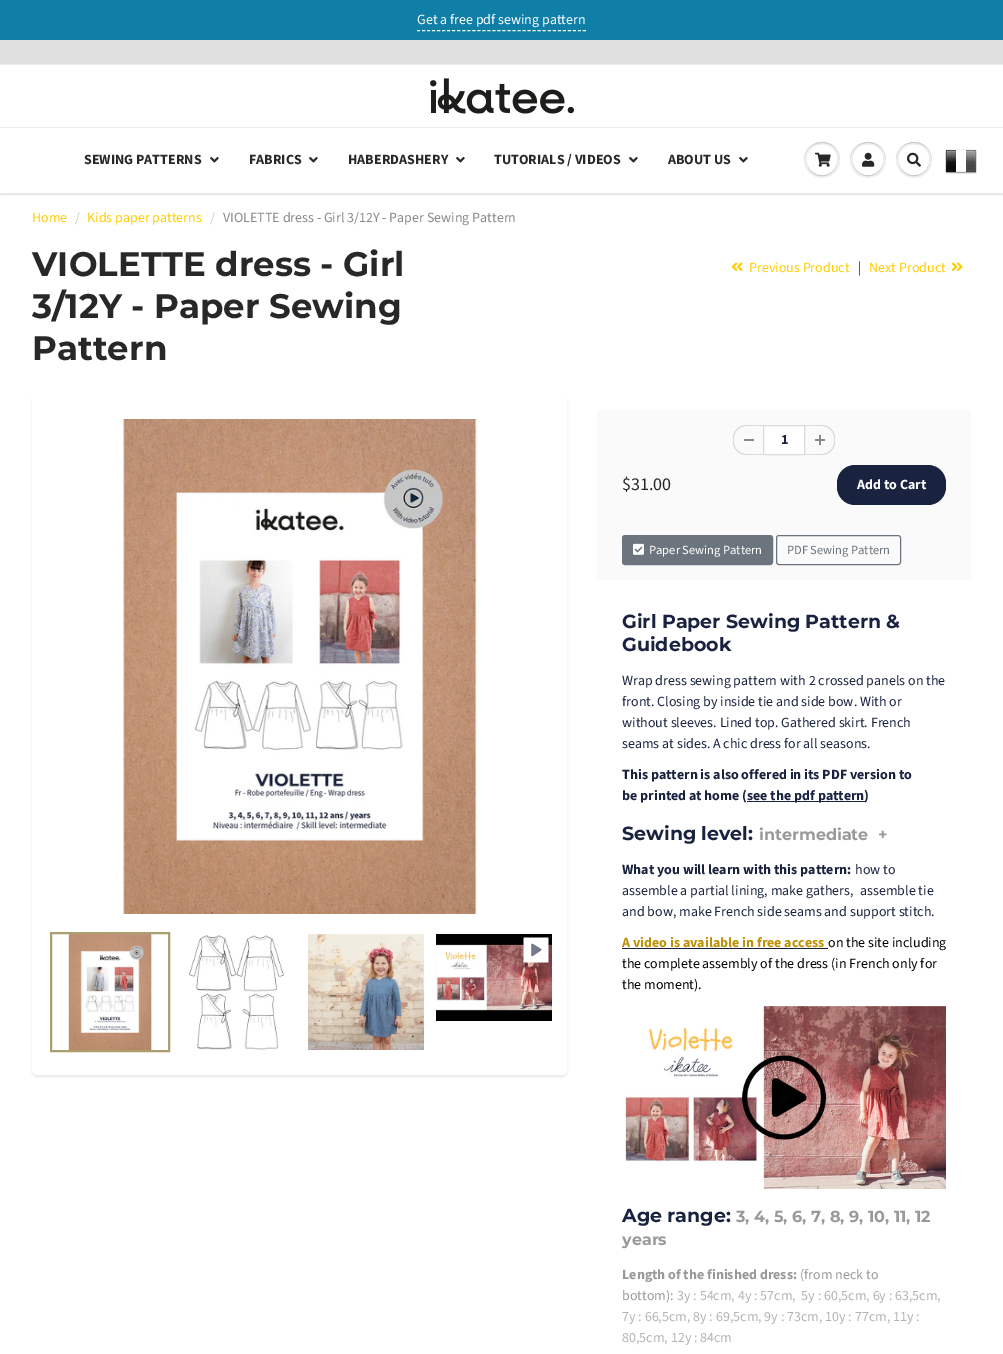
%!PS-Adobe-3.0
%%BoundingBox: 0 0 1003 1354
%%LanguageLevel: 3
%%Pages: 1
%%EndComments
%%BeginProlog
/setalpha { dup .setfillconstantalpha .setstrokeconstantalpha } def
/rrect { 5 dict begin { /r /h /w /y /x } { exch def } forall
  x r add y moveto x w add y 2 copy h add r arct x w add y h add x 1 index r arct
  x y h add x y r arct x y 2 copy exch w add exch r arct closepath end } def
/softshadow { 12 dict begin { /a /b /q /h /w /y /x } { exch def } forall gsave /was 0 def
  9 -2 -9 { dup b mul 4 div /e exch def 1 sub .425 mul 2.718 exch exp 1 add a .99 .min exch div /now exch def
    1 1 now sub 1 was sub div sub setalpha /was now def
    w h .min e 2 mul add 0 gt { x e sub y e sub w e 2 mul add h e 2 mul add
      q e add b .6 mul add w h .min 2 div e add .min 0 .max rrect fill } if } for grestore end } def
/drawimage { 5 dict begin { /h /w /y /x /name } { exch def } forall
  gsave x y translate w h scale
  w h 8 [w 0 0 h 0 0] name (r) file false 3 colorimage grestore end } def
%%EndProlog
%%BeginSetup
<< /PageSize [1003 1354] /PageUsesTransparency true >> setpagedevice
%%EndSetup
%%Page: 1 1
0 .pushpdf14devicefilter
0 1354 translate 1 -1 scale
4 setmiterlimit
1 setgray
0 0 1003 1354 rectfill
0.063 0.498 0.659 setrgbcolor
0 0 1003 40 rectfill
1 setgray
[3 2.03] 0 setdash
newpath 417 30.5 moveto 586 30.5 lineto stroke
0.878 setgray
0 40 1003 24 rectfill
0.925 0.937 0.937 setrgbcolor
0 64 1003 1 rectfill
(images/1.raw) 430 78 144 36 drawimage
gsave
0 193 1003 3 rectclip
0.043 0.098 0.11 setrgbcolor
0 129 1003 66 0 1 0.12 softshadow
grestore
0 127 1003 1 rectfill
(images/2.raw) 210 157 9 6 drawimage
(images/2.raw) 309 157 9 6 drawimage
(images/2.raw) 456 157 9 6 drawimage
(images/2.raw) 629 157 9 6 drawimage
(images/2.raw) 739 157 9 6 drawimage
0.929 0.937 0.937 setrgbcolor
newpath 822 160 18 0 360 arc closepath fill
0.788 0.796 0.796 setrgbcolor
newpath 822 143 moveto 834 143 840 151.5 840 160.5 curveto 840 157 839 153 837 150 curveto 827 135 803.5 142.5 804 160.5 curveto 804 151.5 810 143 822 143 curveto closepath fill
newpath 837 160.5 moveto 836.5 179.5 807.5 179.5 807 160.5 curveto 807 163.5 808 167 809.5 169.5 curveto 818 182 837.5 175.5 837 160.5 curveto closepath fill
1 setgray
newpath 822 160 15 0 360 arc closepath fill
newpath 822 146 moveto 832 146 837 153 837 160.5 curveto 837 157.5 836 154 834.5 151.5 curveto 826 139 806.5 145.5 807 160.5 curveto 807 153 812 146 822 146 curveto closepath fill
(images/3.raw) 815 152 16 15 drawimage
0.929 0.937 0.937 setrgbcolor
newpath 868 160 18 0 360 arc closepath fill
0.788 0.796 0.796 setrgbcolor
newpath 868 143 moveto 880 143 886 151.5 886 160.5 curveto 886 157 885 153 883 150 curveto 873 135 849.5 142.5 850 160.5 curveto 850 151.5 856 143 868 143 curveto closepath fill
newpath 883 160.5 moveto 882.5 179.5 853.5 179.5 853 160.5 curveto 852.5 175.5 872 182 880.5 169.5 curveto 882 167 883 163.5 883 160.5 curveto closepath fill
1 setgray
newpath 868 160 15 0 360 arc closepath fill
newpath 868 146 moveto 878 146 883 153 883 160.5 curveto 883 157.5 882 154 880.5 151.5 curveto 872 139 852.5 145.5 853 160.5 curveto 853 153 858 146 868 146 curveto closepath fill
(images/4.raw) 862 152 13 15 drawimage
0.929 0.937 0.937 setrgbcolor
newpath 914 160 18 0 360 arc closepath fill
0.788 0.796 0.796 setrgbcolor
newpath 914 143 moveto 926 143 932 151.5 932 160.5 curveto 932 157 931 153 929 150 curveto 919 135 895.5 142.5 896 160.5 curveto 896 151.5 902 143 914 143 curveto closepath fill
newpath 929 160.5 moveto 928.5 179.5 899.5 179.5 899 160.5 curveto 899 163.5 900 167 901.5 169.5 curveto 910 182 929.5 175.5 929 160.5 curveto closepath fill
1 setgray
newpath 914 160 15 0 360 arc closepath fill
newpath 914 146 moveto 924 146 929 153 929 160.5 curveto 929 157.5 928 154 926.5 151.5 curveto 918 139 898.5 145.5 899 160.5 curveto 899 153 904 146 914 146 curveto closepath fill
(images/5.raw) 907 152 14 15 drawimage
(images/6.raw) 945 149 32 25 drawimage
(images/7.raw) 731 262 12 10 drawimage
(images/8.raw) 951 262 12 10 drawimage
0.043 0.098 0.11 setrgbcolor
32 396 535 681 5 1 0.1 softshadow
1 setgray
32 394 535 681 5 rrect fill
(images/9.raw) 122 419 356 495 drawimage
0.671 0.624 0.431 setrgbcolor
2 setlinewidth
[] 0 setdash
51 933 118 118 rectstroke
(images/10.raw) 68 934 84 116 drawimage
(images/11.raw) 189 935 95 115 drawimage
(images/12.raw) 308 934 116 116 drawimage
(images/13.raw) 436 934 116 87 drawimage
(images/14.raw) 523 937 26 26 drawimage
0.98 setgray
597 410 374 170 rectfill
0.537 setgray
744 439 10 2 rectfill
0.843 0.859 0.859 setrgbcolor
newpath 746 425 moveto 763 425 lineto 763 455 lineto 746 455 lineto 739 455 733 449 733 442 curveto 733 438 lineto 733 431 739 425 746 425 curveto closepath 746 426 moveto 763 426 lineto 763 454 lineto 746 454 lineto 739.5 454 734 448.5 734 442 curveto 734 438 lineto 734 431.5 739.5 426 746 426 curveto closepath eofill
1 setgray
newpath 763.5 425.5 moveto 804.5 425.5 lineto 804.5 454.5 lineto 763.5 454.5 lineto closepath gsave fill grestore
0.843 0.859 0.859 setrgbcolor
1 setlinewidth
stroke
(images/15.raw) 815 435 10 10 drawimage
newpath 805 425 moveto 822 425 lineto 829 425 835 431 835 438 curveto 835 442 lineto 835 449 829 455 822 455 curveto 805 455 lineto closepath 805 426 moveto 822 426 lineto 828.5 426 834 431.5 834 438 curveto 834 442 lineto 834 448.5 828.5 454 822 454 curveto 805 454 lineto closepath eofill
0.098 0.137 0.247 setrgbcolor
837 465 109 40 18 rrect fill
0.424 0.459 0.49 setrgbcolor
622.5 535.5 150 29 2.5 rrect gsave fill grestore
stroke
(images/16.raw) 633 543 11 12 drawimage
776.5 535.5 124 29 2.5 rrect stroke
0.098 0.137 0.247 setrgbcolor
747 801 118 1 rectfill
622 948 206 1 rectfill
(images/17.raw) 624 1006 322 183 drawimage
/SourceSansPro-Regular [14 0 0 -14 0 0] selectfont
1 setgray
417 24 moveto (Get a free pdf sewing pattern) show
/SourceSansPro-Bold [14 0 0 -14 0 0] selectfont
0.157 0.157 0.153 setrgbcolor
84 164 moveto (SEWING PATTERNS) show
249 164 moveto (FABRICS) show
348 164 moveto (HABERDASHERY) show
494 164 moveto (TUTORIALS / VIDEOS) show
668 164 moveto (ABOUT US) show
/SourceSansPro-Regular [14 0 0 -14 0 0] selectfont
1 0.8 0 setrgbcolor
32 222 moveto (Home) show
0.8 setgray
75 222 moveto (/) show
1 0.8 0 setrgbcolor
87 222 moveto (Kids paper patterns) show
0.8 setgray
210 222 moveto (/) show
0.537 setgray
223 222 moveto (VIOLETTE dress - Girl 3/12Y - Paper Sewing Pattern) show
/Montserrat-Bold [34 0 0 -34 0 0] selectfont
0.157 0.157 0.153 setrgbcolor
32 276 moveto (VIOLETTE dress - Girl) show
32 318 moveto (3/12Y - Paper Sewing) show
32 360 moveto (Pattern) show
/SourceSansPro-Regular [14 0 0 -14 0 0] selectfont
1 0.8 0 setrgbcolor
749 272 moveto (Previous Product) show
0.098 0.137 0.247 setrgbcolor
858 272 moveto (|) show
1 0.8 0 setrgbcolor
869 272 moveto (Next Product) show
/SourceSansPro-Bold [14 0 0 -14 0 0] selectfont
0.098 0.137 0.247 setrgbcolor
781 444 moveto (1) show
/SourceSansPro-Regular [18 0 0 -18 0 0] selectfont
0.157 0.157 0.153 setrgbcolor
622 490 moveto ($31.00) show
/SourceSansPro-Bold [14 0 0 -14 0 0] selectfont
1 setgray
857 489 moveto (Add to Cart) show
/SourceSansPro-Regular [12.5 0 0 -12.5 0 0] selectfont
649 554 moveto (Paper Sewing Pattern) show
0.424 0.459 0.49 setrgbcolor
787 554 moveto (PDF Sewing Pattern) show
/Montserrat-Bold [19 0 0 -19 0 0] selectfont
0.098 0.137 0.247 setrgbcolor
622 628 moveto (Girl Paper Sewing Pattern &) show
622 651 moveto (Guidebook) show
/SourceSansPro-Regular [14 0 0 -14 0 0] selectfont
622 685 moveto (Wrap dress sewing pattern with 2 crossed panels on the) show
622 706 moveto (front. Closing by inside tie and side bow. With or) show
622 727 moveto (without sleeves. Lined top. Gathered skirt. French) show
622 748 moveto (seams at sides. A chic dress for all seasons.) show
/SourceSansPro-Bold [14 0 0 -14 0 0] selectfont
622 779 moveto (This pattern is also offered in its PDF version to) show
622 800 moveto (be printed at home \() show
747 800 moveto (see the pdf pattern\)) show
/Montserrat-Bold [19 0 0 -19 0 0] selectfont
622 840 moveto (Sewing level:) show
/Montserrat-Bold [16 0 0 -16 0 0] selectfont
0.6 setgray
759 840 moveto (intermediate  +) show
/SourceSansPro-Bold [14 0 0 -14 0 0] selectfont
0.098 0.137 0.247 setrgbcolor
622 874 moveto (What you will learn with this pattern:) show
/SourceSansPro-Regular [14 0 0 -14 0 0] selectfont
855 874 moveto (how to) show
622 895 moveto (assemble a partial lining, make gathers,) show
860 895 moveto (assemble tie) show
622 916 moveto (and bow, make French side seams and support stitch.) show
/SourceSansPro-Bold [14 0 0 -14 0 0] selectfont
0.749 0.565 0 setrgbcolor
622 947 moveto (A video is available in free access) show
/SourceSansPro-Regular [14 0 0 -14 0 0] selectfont
0 setgray
828 947 moveto (on the site including) show
622 968 moveto (the complete assembly of the dress \(in French only for) show
622 989 moveto (the moment\).) show
/Montserrat-Bold [19 0 0 -19 0 0] selectfont
0.098 0.137 0.247 setrgbcolor
622 1222 moveto (Age range:) show
/Montserrat-Bold [16 0 0 -16 0 0] selectfont
0.6 setgray
736 1222 moveto (3, 4, 5, 6, 7, 8, 9, 10, 11, 12) show
622 1245 moveto (years) show
/SourceSansPro-Bold [14 0 0 -14 0 0] selectfont
622 1279 moveto (Length of the finished dress:) show
/SourceSansPro-Regular [14 0 0 -14 0 0] selectfont
800 1279 moveto (\(from neck to) show
622 1300 moveto (bottom\):) show
0.702 setgray
677 1300 moveto (3y : 54cm, 4y : 57cm,  5y : 60,5cm, 6y : 63,5cm,) show
622 1321 moveto (7y : 66,5cm, 8y : 69,5cm, 9y : 73cm, 10y : 77cm, 11y :) show
622 1342 moveto (80,5cm, 12y : 84cm) show
.poppdf14devicefilter showpage
%%EOF
